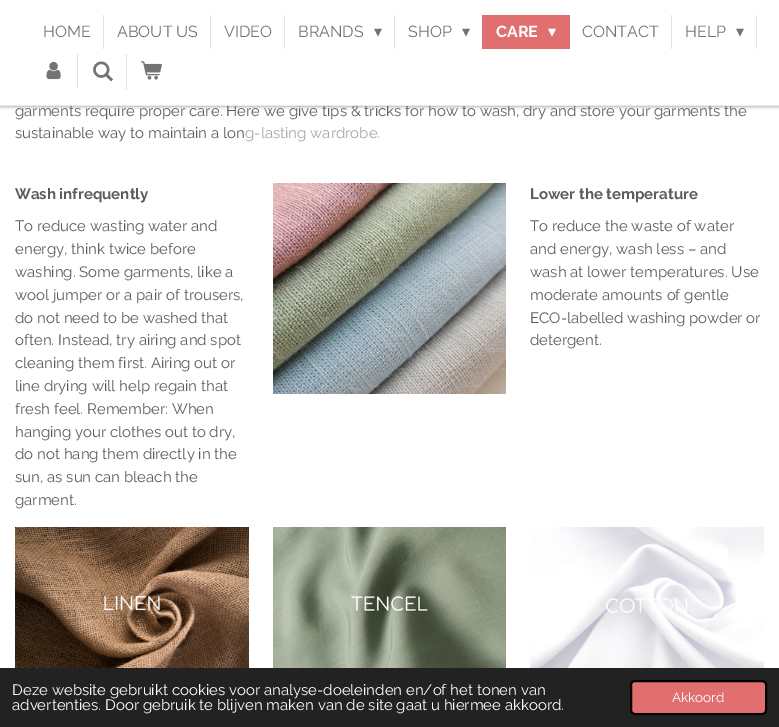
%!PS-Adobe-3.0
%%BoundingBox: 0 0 779 727
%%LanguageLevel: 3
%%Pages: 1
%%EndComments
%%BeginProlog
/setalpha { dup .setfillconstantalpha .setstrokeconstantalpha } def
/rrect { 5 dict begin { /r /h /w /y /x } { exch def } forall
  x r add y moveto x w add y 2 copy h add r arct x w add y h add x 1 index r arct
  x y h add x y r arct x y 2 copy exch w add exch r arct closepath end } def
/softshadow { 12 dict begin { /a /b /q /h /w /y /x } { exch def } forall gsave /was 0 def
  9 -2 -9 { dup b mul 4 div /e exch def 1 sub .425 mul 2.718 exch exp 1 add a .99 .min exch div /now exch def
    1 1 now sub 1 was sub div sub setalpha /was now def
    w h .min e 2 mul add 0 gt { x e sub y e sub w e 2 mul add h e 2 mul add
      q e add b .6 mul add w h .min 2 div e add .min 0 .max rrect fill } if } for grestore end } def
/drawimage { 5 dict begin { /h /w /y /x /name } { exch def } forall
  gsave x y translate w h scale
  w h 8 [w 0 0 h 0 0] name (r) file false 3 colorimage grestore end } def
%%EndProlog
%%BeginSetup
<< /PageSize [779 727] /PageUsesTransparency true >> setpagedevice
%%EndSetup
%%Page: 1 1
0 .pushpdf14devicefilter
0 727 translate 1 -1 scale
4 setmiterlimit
1 setgray
0 0 779 727 rectfill
0 setgray
0 -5 779 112 0 1.5 0.3 softshadow
(images/4.raw) 273 183 233 211 drawimage
(images/5.raw) 15 527 234 141 drawimage
(images/6.raw) 273 527 233 141 drawimage
(images/7.raw) 530 527 234 141 drawimage
0.133 setgray
0 668 779 59 rectfill
0.886 0.435 0.435 setrgbcolor
631 681 135 33 4 rrect gsave fill grestore
0 setgray
2 setlinewidth
stroke
/Raleway-Thin [15 0 0 -15 0 0] selectfont
0.361 setgray
15 116 moveto (garments require proper care. Here we give tips & tricks for how to wash, dry and store your garments the) show
1 setgray
0 0 779 105 rectfill
0.886 0.435 0.435 setrgbcolor
482 15 88 34 rectfill
/DejaVuSans-Regular [16 0 0 -16 0 0] selectfont
1 setgray
548 37 moveto (▾) show
/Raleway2-Thin [16 0 0 -16 0 0] selectfont
496 37 moveto (CARE) show
(images/3.raw) 141 61 21 19 drawimage
(images/2.raw) 93 61 20 21 drawimage
0.89 setgray
126 54 1 36 rectfill
(images/1.raw) 46 61 15 19 drawimage
77 54 1 34 rectfill
/DejaVuSans-Regular [16 0 0 -16 0 0] selectfont
0.451 setgray
736 37 moveto (▾) show
/Raleway-Thin [16 0 0 -16 0 0] selectfont
685 37 moveto (HELP) show
0.89 setgray
756 15 1 34 rectfill
0.451 setgray
582 37 moveto (CONTACT) show
0.89 setgray
671 15 1 34 rectfill
/DejaVuSans-Regular [16 0 0 -16 0 0] selectfont
0.451 setgray
462 37 moveto (▾) show
/Raleway-Thin [16 0 0 -16 0 0] selectfont
408 37 moveto (SHOP) show
/DejaVuSans-Regular [16 0 0 -16 0 0] selectfont
374 37 moveto (▾) show
/Raleway-Thin [16 0 0 -16 0 0] selectfont
298 37 moveto (BRANDS) show
0.89 setgray
394 15 1 34 rectfill
0.451 setgray
224 37 moveto (VIDEO) show
0.89 setgray
284 15 1 34 rectfill
0.451 setgray
117 37 moveto (ABOUT US) show
0.89 setgray
210 15 1 34 rectfill
0.451 setgray
43 37 moveto (HOME) show
0.89 setgray
103 15 1 34 rectfill
0.918 setgray
0 105 779 1 rectfill
/Raleway-Thin [15 0 0 -15 0 0] selectfont
0.361 setgray
15 138 moveto (sustainable way to maintain a lon) show
0.651 setgray
245 138 moveto (g-lasting wardrobe.) show
/Raleway2-Thin [15 0 0 -15 0 0] selectfont
0.361 setgray
15 199 moveto (Wash infrequently) show
/Raleway-Thin [15 0 0 -15 0 0] selectfont
15 231 moveto (To reduce wasting water and) show
15 254 moveto (energy, think twice before) show
15 277 moveto (washing. Some garments, like a) show
15 300 moveto (wool jumper or a pair of trousers,) show
15 323 moveto (do not need to be washed that) show
15 345 moveto (often. Instead, try airing and spot) show
15 368 moveto (cleaning them first. Airing out or) show
15 391 moveto (line drying will help regain that) show
15 414 moveto (fresh feel. Remember: When) show
15 437 moveto (hanging your clothes out to dry,) show
15 459 moveto (do not hang them directly in the) show
15 482 moveto (sun, as sun can bleach the) show
15 505 moveto (garment.) show
/Raleway2-Thin [15 0 0 -15 0 0] selectfont
530 199 moveto (Lower the temperature) show
/Raleway-Thin [15 0 0 -15 0 0] selectfont
530 231 moveto (To reduce the waste of water) show
530 254 moveto (and energy, wash less – and) show
530 277 moveto (wash at lower temperatures. Use) show
530 300 moveto (moderate amounts of gentle) show
530 323 moveto (ECO-labelled washing powder or) show
530 345 moveto (detergent.) show
1 setgray
12 695 moveto (Deze website gebruikt cookies voor analyse-doeleinden en/of het tonen van) show
12 710 moveto (advertenties. Door gebruik te blijven maken van de site gaat u hiermee akkoord.) show
/Raleway-Thin [13.5 0 0 -13.5 0 0] selectfont
672 702 moveto (Akkoord) show
.poppdf14devicefilter showpage
%%EOF
